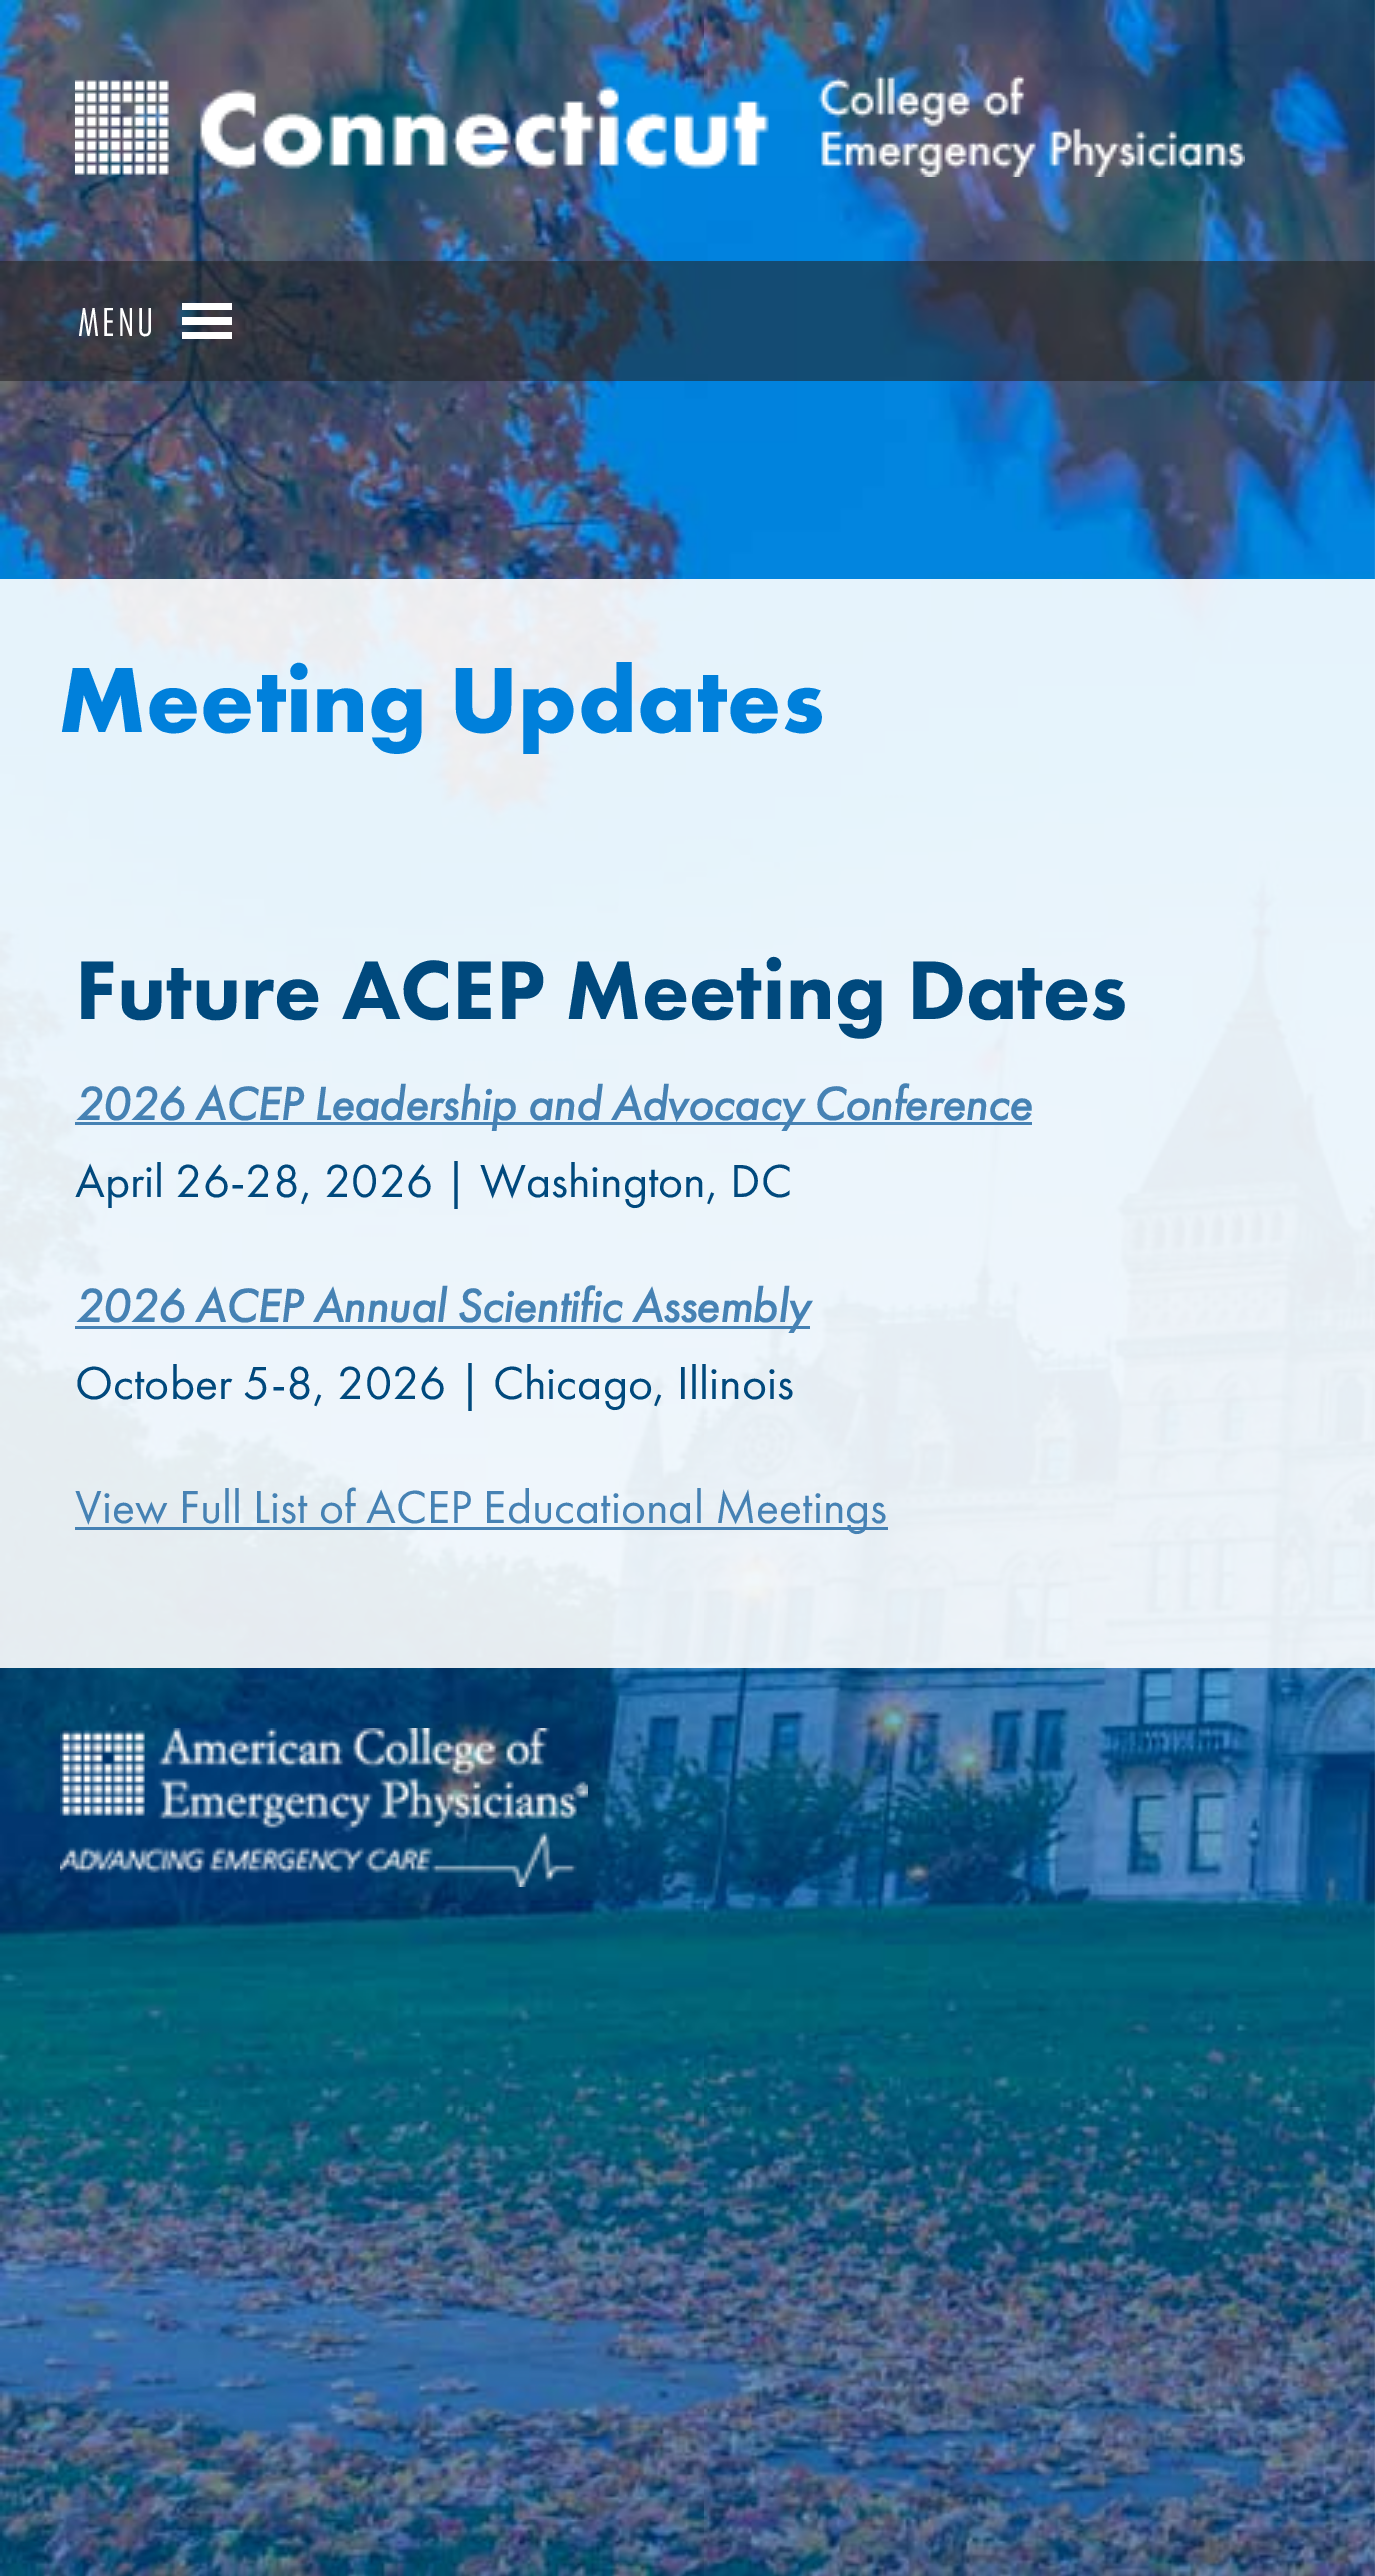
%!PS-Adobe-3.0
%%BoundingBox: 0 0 1375 2576
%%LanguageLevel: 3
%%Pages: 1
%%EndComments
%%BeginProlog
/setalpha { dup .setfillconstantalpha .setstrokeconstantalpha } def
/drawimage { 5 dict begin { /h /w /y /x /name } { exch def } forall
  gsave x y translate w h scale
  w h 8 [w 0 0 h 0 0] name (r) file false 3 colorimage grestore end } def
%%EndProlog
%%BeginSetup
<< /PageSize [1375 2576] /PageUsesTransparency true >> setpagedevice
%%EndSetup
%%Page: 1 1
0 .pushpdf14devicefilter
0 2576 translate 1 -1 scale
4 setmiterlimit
1 setgray
0 0 1375 2576 rectfill
(images/1.raw) 0 0 1375 2576 drawimage
(images/2.raw) 75 75 1170 102 drawimage
0.57 setalpha
0.133 setgray
0 261 1375 120 rectfill
1 setalpha
1 setgray
newpath 182 339 moveto 232 339 lineto 232 332 lineto 182 332 lineto closepath 182 303 moveto 182 310 lineto 232 310 lineto 232 303 lineto closepath 182 325 moveto 232 325 lineto 232 317 lineto 182 317 lineto closepath fill
0.9 setalpha
0 579 1375 1089 rectfill
1 setalpha
0.275 0.51 0.706 setrgbcolor
75 1122 957 3 rectfill
75 1326 735 3 rectfill
75 1527 813 3 rectfill
(images/3.raw) 60 1728 528 159 drawimage
/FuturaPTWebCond-Regular [42 0 0 -42 0 0] selectfont
1 setgray
78 336 moveto 3 0 (MENU) ashow
/FuturaPT-Bold [96 0 0 -96 0 0] selectfont
0 0.502 0.859 setrgbcolor
58 732 moveto (Meeting Updates) show
/FuturaPT-Black [86.4 0 0 -86.4 0 0] selectfont
0 0.286 0.49 setrgbcolor
75 1019 moveto (Future ACEP Meeting Dates) show
/FuturaPT-BoldItalic [48 0 0 -48 0 0] selectfont
0.275 0.51 0.706 setrgbcolor
75 1120 moveto (2026 ACEP Leadership and Advocacy Conference) show
/FuturaPT-Regular [48 0 0 -48 0 0] selectfont
0 0.286 0.49 setrgbcolor
75 1197 moveto (April 26-28, 2026 | Washington, DC) show
/FuturaPT-BoldItalic [48 0 0 -48 0 0] selectfont
0.275 0.51 0.706 setrgbcolor
75 1322 moveto (2026 ACEP Annual Scientific Assembly) show
/FuturaPT-Regular [48 0 0 -48 0 0] selectfont
0 0.286 0.49 setrgbcolor
75 1399 moveto (October 5-8, 2026 | Chicago, Illinois) show
0.275 0.51 0.706 setrgbcolor
75 1523 moveto (View Full List of ACEP Educational Meetings) show
.poppdf14devicefilter showpage
%%EOF
